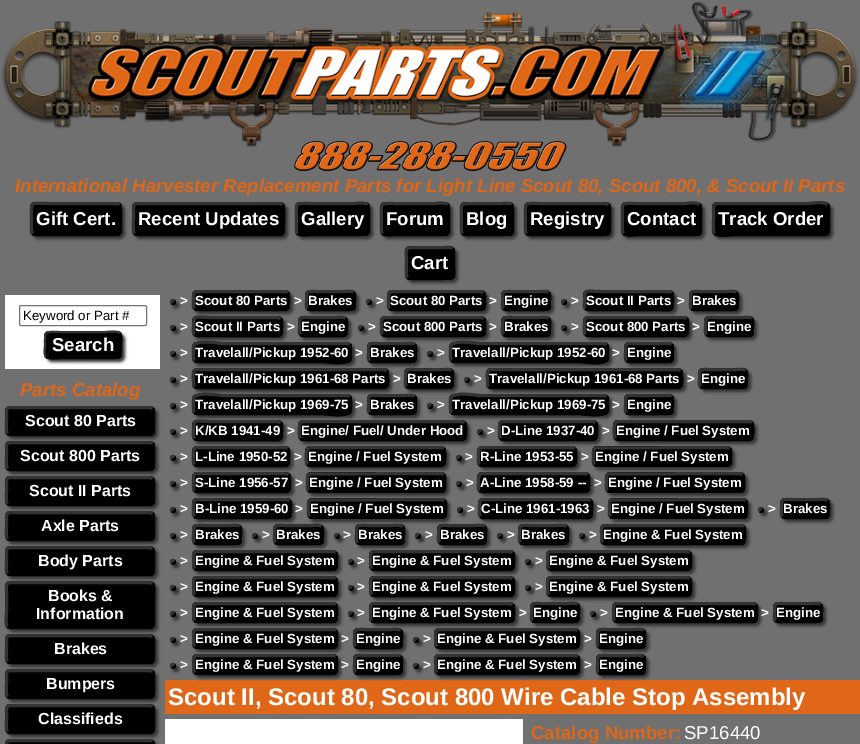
%!PS-Adobe-3.0
%%BoundingBox: 0 0 860 744
%%LanguageLevel: 3
%%Pages: 1
%%EndComments
%%BeginProlog
/setalpha { dup .setfillconstantalpha .setstrokeconstantalpha } def
/rrect { 5 dict begin { /r /h /w /y /x } { exch def } forall
  x r add y moveto x w add y 2 copy h add r arct x w add y h add x 1 index r arct
  x y h add x y r arct x y 2 copy exch w add exch r arct closepath end } def
/softshadow { 12 dict begin { /a /b /q /h /w /y /x } { exch def } forall gsave /was 0 def
  9 -2 -9 { dup b mul 4 div /e exch def 1 sub .425 mul 2.718 exch exp 1 add a .99 .min exch div /now exch def
    1 1 now sub 1 was sub div sub setalpha /was now def
    w h .min e 2 mul add 0 gt { x e sub y e sub w e 2 mul add h e 2 mul add
      q e add b .6 mul add w h .min 2 div e add .min 0 .max rrect fill } if } for grestore end } def
/drawimage { 5 dict begin { /h /w /y /x /name } { exch def } forall
  gsave x y translate w h scale
  w h 8 [w 0 0 h 0 0] name (r) file false 3 colorimage grestore end } def
%%EndProlog
%%BeginSetup
<< /PageSize [860 744] /PageUsesTransparency true >> setpagedevice
%%EndSetup
%%Page: 1 1
0 .pushpdf14devicefilter
0 744 translate 1 -1 scale
4 setmiterlimit
0.439 setgray
0 0 860 744 rectfill
(images/1.raw) 1 1 858 146 drawimage
(images/2.raw) 294 141 273 31 drawimage
0.2 setgray
33 205 92 34 5 1.5 1 softshadow
0 setgray
30 202 92 34 5 rrect fill
3 setlinewidth
newpath 119.5 204.5 moveto 121.5 207 120.5 216 120.5 219 curveto 120.5 237.5 123 234.5 103.5 234.5 curveto 35 234.5 lineto 32.5 233.5 lineto stroke
0.2 setgray
newpath 32.5 233.5 moveto 30.5 231 31.5 222 31.5 219 curveto 31.5 200.5 29 203.5 48.5 203.5 curveto 117 203.5 lineto 119.5 204.5 lineto stroke
135 205 153 34 5 1.5 1 softshadow
0 setgray
132 202 153 34 5 rrect fill
newpath 282.5 204.5 moveto 284.5 207 283.5 216 283.5 219 curveto 283.5 227 lineto 283.5 229.5 284 234.5 280 234.5 curveto 137 234.5 lineto 134.5 233.5 lineto stroke
0.2 setgray
newpath 134.5 233.5 moveto 132.5 231 133.5 222 133.5 219 curveto 133.5 211 lineto 133.5 208.5 133 203.5 137 203.5 curveto 280 203.5 lineto 282.5 204.5 lineto stroke
298 205 75 34 5 1.5 1 softshadow
0 setgray
295 202 75 34 5 rrect fill
newpath 367.5 204.5 moveto 369.5 207 368.5 216 368.5 219 curveto 368.5 236 371.5 234.5 354 234.5 curveto 311 234.5 lineto 310 234.5 300 236 297.5 233.5 curveto stroke
0.2 setgray
newpath 297.5 233.5 moveto 295.5 231 296.5 222 296.5 219 curveto 296.5 202 293.5 203.5 311 203.5 curveto 354 203.5 lineto 355 203.5 365 202 367.5 204.5 curveto stroke
383 205 70 34 5 1.5 1 softshadow
0 setgray
380 202 70 34 5 rrect fill
newpath 447.5 204.5 moveto 449.5 207 448.5 216 448.5 219 curveto 448.5 236 451.5 234.5 435 234.5 curveto 395 234.5 lineto 393.5 234.5 385 236 382.5 233.5 curveto stroke
0.2 setgray
newpath 382.5 233.5 moveto 380.5 231 381.5 222 381.5 219 curveto 381.5 202 378.5 203.5 395 203.5 curveto 435 203.5 lineto 436.5 203.5 445 202 447.5 204.5 curveto stroke
463 205 54 34 5 1.5 1 softshadow
0 setgray
460 202 54 34 5 rrect fill
newpath 511.5 204.5 moveto 513.5 207 512.5 216 512.5 219 curveto 512.5 234 515.5 234.5 501.5 234.5 curveto 472.5 234.5 lineto 471 234.5 464.5 235.5 462.5 233.5 curveto stroke
0.2 setgray
newpath 462.5 233.5 moveto 460.5 231 461.5 222 461.5 219 curveto 461.5 204 458.5 203.5 472.5 203.5 curveto 501.5 203.5 lineto 503 203.5 509.5 202.5 511.5 204.5 curveto stroke
527 205 87 34 5 1.5 1 softshadow
0 setgray
524 202 87 34 5 rrect fill
newpath 608.5 204.5 moveto 610.5 207 609.5 216 609.5 219 curveto 609.5 237 612 234.5 593 234.5 curveto 529 234.5 lineto 526.5 233.5 lineto stroke
0.2 setgray
newpath 526.5 233.5 moveto 524.5 231 525.5 222 525.5 219 curveto 525.5 201 523 203.5 542 203.5 curveto 606 203.5 lineto 608.5 204.5 lineto stroke
624 205 81 34 5 1.5 1 softshadow
0 setgray
621 202 81 34 5 rrect fill
newpath 699.5 204.5 moveto 701.5 207 700.5 216 700.5 219 curveto 700.5 236.5 703.5 234.5 685 234.5 curveto 638 234.5 lineto 637.5 234.5 626.5 236.5 623.5 233.5 curveto stroke
0.2 setgray
newpath 623.5 233.5 moveto 621.5 231 622.5 222 622.5 219 curveto 622.5 201.5 619.5 203.5 638 203.5 curveto 685 203.5 lineto 685.5 203.5 696.5 201.5 699.5 204.5 curveto stroke
715 205 118 34 5 1.5 1 softshadow
0 setgray
712 202 118 34 5 rrect fill
newpath 827.5 204.5 moveto 829.5 207 828.5 216 828.5 219 curveto 828.5 227 lineto 828.5 229.5 829 234.5 825 234.5 curveto 735 234.5 lineto 728.5 234.5 721 237 715.5 234 curveto 714.5 233.5 lineto stroke
0.2 setgray
newpath 714.5 233.5 moveto 712.5 231 713.5 222 713.5 219 curveto 713.5 211 lineto 713.5 208.5 713 203.5 717 203.5 curveto 807 203.5 lineto 813.5 203.5 821 201 826.5 204 curveto 827.5 204.5 lineto stroke
408 249 50 34 5 1.5 1 softshadow
0 setgray
405 246 50 34 5 rrect fill
newpath 452.5 248.5 moveto 454.5 251 453.5 260 453.5 263 curveto 453.5 277.5 457 278.5 443.5 278.5 curveto 416.5 278.5 lineto 415 278.5 409.5 279.5 407.5 277.5 curveto stroke
0.2 setgray
newpath 407.5 277.5 moveto 405.5 275 406.5 266 406.5 263 curveto 406.5 248.5 403 247.5 416.5 247.5 curveto 443.5 247.5 lineto 445 247.5 450.5 246.5 452.5 248.5 curveto stroke
1 setgray
5 295 155 74 rectfill
0.463 setgray
1 setlinewidth
19.5 305.5 127 20 1.5 rrect stroke
0.2 setgray
47 334 78 28 5 1.5 1 softshadow
0 setgray
44 331 78 28 5 rrect fill
2 setlinewidth
newpath 120 333 moveto 122.5 335.5 121 342 121 345 curveto 121 360 122 358 105.5 358 curveto 60.5 358 lineto 59 358 49 359.5 46 357 curveto stroke
0.2 setgray
newpath 46 357 moveto 43.5 354.5 45 348 45 345 curveto 45 330 44 332 60.5 332 curveto 105.5 332 lineto 107 332 117 330.5 120 333 curveto stroke
8 409 150 30 5 1.5 1 softshadow
0 setgray
5 406 150 30 5 rrect fill
3 setlinewidth
newpath 152.5 408.5 moveto 154.5 411 153.5 418.5 153.5 421 curveto 153.5 427.5 lineto 153.5 430.5 154 434.5 150 434.5 curveto 10 434.5 lineto 7.5 433.5 lineto stroke
0.2 setgray
newpath 7.5 433.5 moveto 5.5 431 6.5 423.5 6.5 421 curveto 6.5 414.5 lineto 6.5 411.5 6 407.5 10 407.5 curveto 150 407.5 lineto 152.5 408.5 lineto stroke
8 444 150 30 5 1.5 1 softshadow
0 setgray
5 441 150 30 5 rrect fill
newpath 152.5 443.5 moveto 154.5 446 153.5 453.5 153.5 456 curveto 153.5 462.5 lineto 153.5 465.5 154 469.5 150 469.5 curveto 10 469.5 lineto 7.5 468.5 lineto stroke
0.2 setgray
newpath 7.5 468.5 moveto 5.5 466 6.5 458.5 6.5 456 curveto 6.5 449.5 lineto 6.5 446.5 6 442.5 10 442.5 curveto 150 442.5 lineto 152.5 443.5 lineto stroke
8 479 150 30 5 1.5 1 softshadow
0 setgray
5 476 150 30 5 rrect fill
newpath 152.5 478.5 moveto 154.5 481 153.5 488.5 153.5 491 curveto 153.5 497.5 lineto 153.5 500.5 154 504.5 150 504.5 curveto 10 504.5 lineto 7.5 503.5 lineto stroke
0.2 setgray
newpath 7.5 503.5 moveto 5.5 501 6.5 493.5 6.5 491 curveto 6.5 484.5 lineto 6.5 481.5 6 477.5 10 477.5 curveto 150 477.5 lineto 152.5 478.5 lineto stroke
8 514 150 30 5 1.5 1 softshadow
0 setgray
5 511 150 30 5 rrect fill
newpath 152.5 513.5 moveto 154.5 516 153.5 523.5 153.5 526 curveto 153.5 532.5 lineto 153.5 535.5 154 539.5 150 539.5 curveto 10 539.5 lineto 7.5 538.5 lineto stroke
0.2 setgray
newpath 7.5 538.5 moveto 5.5 536 6.5 528.5 6.5 526 curveto 6.5 519.5 lineto 6.5 516.5 6 512.5 10 512.5 curveto 150 512.5 lineto 152.5 513.5 lineto stroke
8 549 150 30 5 1.5 1 softshadow
0 setgray
5 546 150 30 5 rrect fill
newpath 152.5 548.5 moveto 154.5 551 153.5 558.5 153.5 561 curveto 153.5 567.5 lineto 153.5 570.5 154 574.5 150 574.5 curveto 10 574.5 lineto 7.5 573.5 lineto stroke
0.2 setgray
newpath 7.5 573.5 moveto 5.5 571 6.5 563.5 6.5 561 curveto 6.5 554.5 lineto 6.5 551.5 6 547.5 10 547.5 curveto 150 547.5 lineto 152.5 548.5 lineto stroke
8 584 150 48 5 1.5 1 softshadow
0 setgray
5 581 150 48 5 rrect fill
newpath 152.5 583.5 moveto 155 586 153.5 596 153.5 598.5 curveto 153.5 617.5 lineto 153.5 620 155 627.5 150 627.5 curveto 10 627.5 lineto 7.5 626.5 lineto stroke
0.2 setgray
newpath 7.5 626.5 moveto 5 624 6.5 614 6.5 611.5 curveto 6.5 592.5 lineto 6.5 590 5 582.5 10 582.5 curveto 150 582.5 lineto 152.5 583.5 lineto stroke
8 637 150 30 5 1.5 1 softshadow
0 setgray
5 634 150 30 5 rrect fill
newpath 152.5 636.5 moveto 154.5 639 153.5 646.5 153.5 649 curveto 153.5 655.5 lineto 153.5 658.5 154 662.5 150 662.5 curveto 10 662.5 lineto 7.5 661.5 lineto stroke
0.2 setgray
newpath 7.5 661.5 moveto 5.5 659 6.5 651.5 6.5 649 curveto 6.5 642.5 lineto 6.5 639.5 6 635.5 10 635.5 curveto 150 635.5 lineto 152.5 636.5 lineto stroke
8 672 150 30 5 1.5 1 softshadow
0 setgray
5 669 150 30 5 rrect fill
newpath 152.5 671.5 moveto 154.5 674 153.5 681.5 153.5 684 curveto 153.5 690.5 lineto 153.5 693.5 154 697.5 150 697.5 curveto 10 697.5 lineto 7.5 696.5 lineto stroke
0.2 setgray
newpath 7.5 696.5 moveto 5.5 694 6.5 686.5 6.5 684 curveto 6.5 677.5 lineto 6.5 674.5 6 670.5 10 670.5 curveto 150 670.5 lineto 152.5 671.5 lineto stroke
8 707 150 30 5 1.5 1 softshadow
0 setgray
5 704 150 30 5 rrect fill
newpath 152.5 706.5 moveto 154.5 709 153.5 716.5 153.5 719 curveto 153.5 725.5 lineto 153.5 728.5 154 732.5 150 732.5 curveto 10 732.5 lineto 7.5 731.5 lineto stroke
0.2 setgray
newpath 7.5 731.5 moveto 5.5 729 6.5 721.5 6.5 719 curveto 6.5 712.5 lineto 6.5 709.5 6 705.5 10 705.5 curveto 150 705.5 lineto 152.5 706.5 lineto stroke
8 742 150 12 5 1.5 1 softshadow
0 setgray
5 739 150 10 5 rrect fill
newpath 152.5 741.5 moveto 153 742 153.5 743 153.5 744 curveto 153.5 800 lineto 153.5 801 153 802 152.5 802.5 curveto 152 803 151 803.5 150 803.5 curveto 10 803.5 lineto 9 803.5 8 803 7.5 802.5 curveto stroke
0.2 setgray
newpath 7.5 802.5 moveto 7 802 6.5 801 6.5 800 curveto 6.5 744 lineto 6.5 743 7 742 7.5 741.5 curveto 8 741 9 740.5 10 740.5 curveto 150 740.5 lineto 151 740.5 152 741 152.5 741.5 curveto stroke
173 302 6 6 3 1.5 1 softshadow
0 setgray
newpath 174 301 moveto 175.5 302.5 173.5 304.5 172 303 curveto stroke
0.2 setgray
newpath 172 303 moveto 170.5 301.5 172.5 299.5 174 301 curveto stroke
195 293 98 21 5 1.5 1 softshadow
0 setgray
192 290 98 21 5 rrect fill
newpath 287.5 292.5 moveto 289.5 294.5 288.5 298 288.5 300.5 curveto 288.5 303.5 289.5 309.5 285 309.5 curveto 197 309.5 lineto 194.5 308.5 lineto stroke
0.2 setgray
newpath 194.5 308.5 moveto 192.5 306.5 193.5 303 193.5 300.5 curveto 193.5 297.5 192.5 291.5 197 291.5 curveto 285 291.5 lineto 287.5 292.5 lineto stroke
308 293 51 21 5 1.5 1 softshadow
0 setgray
305 290 51 21 5 rrect fill
newpath 353.5 292.5 moveto 355.5 294.5 354.5 298 354.5 300.5 curveto 354.5 310.5 354.5 309.5 344 309.5 curveto 317 309.5 lineto 315.5 309.5 309.5 310.5 307.5 308.5 curveto stroke
0.2 setgray
newpath 307.5 308.5 moveto 305.5 306.5 306.5 303 306.5 300.5 curveto 306.5 290.5 306.5 291.5 317 291.5 curveto 344 291.5 lineto 345.5 291.5 351.5 290.5 353.5 292.5 curveto stroke
369 302 6 6 3 1.5 1 softshadow
0 setgray
newpath 370 301 moveto 371.5 302.5 369.5 304.5 368 303 curveto stroke
0.2 setgray
newpath 368 303 moveto 366.5 301.5 368.5 299.5 370 301 curveto stroke
390 293 99 21 5 1.5 1 softshadow
0 setgray
387 290 99 21 5 rrect fill
newpath 483.5 292.5 moveto 485.5 294.5 484.5 298 484.5 300.5 curveto 484.5 303.5 485.5 309.5 481 309.5 curveto 392 309.5 lineto 389.5 308.5 lineto stroke
0.2 setgray
newpath 389.5 308.5 moveto 387.5 306.5 388.5 303 388.5 300.5 curveto 388.5 297.5 387.5 291.5 392 291.5 curveto 481 291.5 lineto 483.5 292.5 lineto stroke
504 293 50 21 5 1.5 1 softshadow
0 setgray
501 290 50 21 5 rrect fill
newpath 548.5 292.5 moveto 550.5 294.5 549.5 298 549.5 300.5 curveto 549.5 310.5 549.5 309.5 539.5 309.5 curveto 512.5 309.5 lineto 511 309.5 505.5 310.5 503.5 308.5 curveto stroke
0.2 setgray
newpath 503.5 308.5 moveto 501.5 306.5 502.5 303 502.5 300.5 curveto 502.5 290.5 502.5 291.5 512.5 291.5 curveto 539.5 291.5 lineto 541 291.5 546.5 290.5 548.5 292.5 curveto stroke
564 302 6 6 3 1.5 1 softshadow
0 setgray
newpath 565 301 moveto 566.5 302.5 564.5 304.5 563 303 curveto stroke
0.2 setgray
newpath 563 303 moveto 561.5 301.5 563.5 299.5 565 301 curveto stroke
586 293 91 21 5 1.5 1 softshadow
0 setgray
583 290 91 21 5 rrect fill
newpath 671.5 292.5 moveto 673.5 294.5 672.5 298 672.5 300.5 curveto 672.5 313 670.5 309.5 655.5 309.5 curveto 588 309.5 lineto 585.5 308.5 lineto stroke
0.2 setgray
newpath 585.5 308.5 moveto 583.5 306.5 584.5 303 584.5 300.5 curveto 584.5 288 586.5 291.5 601.5 291.5 curveto 669 291.5 lineto 671.5 292.5 lineto stroke
692 293 50 21 5 1.5 1 softshadow
0 setgray
689 290 50 21 5 rrect fill
newpath 736.5 292.5 moveto 738.5 294.5 737.5 298 737.5 300.5 curveto 737.5 310.5 737.5 309.5 727.5 309.5 curveto 700.5 309.5 lineto 699 309.5 693.5 310.5 691.5 308.5 curveto stroke
0.2 setgray
newpath 691.5 308.5 moveto 689.5 306.5 690.5 303 690.5 300.5 curveto 690.5 290.5 690.5 291.5 700.5 291.5 curveto 727.5 291.5 lineto 729 291.5 734.5 290.5 736.5 292.5 curveto stroke
173 328 6 6 3 1.5 1 softshadow
0 setgray
newpath 174 327 moveto 175.5 328.5 173.5 330.5 172 329 curveto stroke
0.2 setgray
newpath 172 329 moveto 170.5 327.5 172.5 325.5 174 327 curveto stroke
195 319 91 21 5 1.5 1 softshadow
0 setgray
192 316 91 21 5 rrect fill
newpath 280.5 318.5 moveto 282.5 320.5 281.5 324 281.5 326.5 curveto 281.5 339 279.5 335.5 264.5 335.5 curveto 197 335.5 lineto 194.5 334.5 lineto stroke
0.2 setgray
newpath 194.5 334.5 moveto 192.5 332.5 193.5 329 193.5 326.5 curveto 193.5 314 195.5 317.5 210.5 317.5 curveto 278 317.5 lineto 280.5 318.5 lineto stroke
301 319 50 21 5 1.5 1 softshadow
0 setgray
298 316 50 21 5 rrect fill
newpath 345.5 318.5 moveto 347.5 320.5 346.5 324 346.5 326.5 curveto 346.5 336.5 346.5 335.5 336.5 335.5 curveto 309.5 335.5 lineto 308 335.5 302.5 336.5 300.5 334.5 curveto stroke
0.2 setgray
newpath 300.5 334.5 moveto 298.5 332.5 299.5 329 299.5 326.5 curveto 299.5 316.5 299.5 317.5 309.5 317.5 curveto 336.5 317.5 lineto 338 317.5 343.5 316.5 345.5 318.5 curveto stroke
361 328 6 6 3 1.5 1 softshadow
0 setgray
newpath 362 327 moveto 363.5 328.5 361.5 330.5 360 329 curveto stroke
0.2 setgray
newpath 360 329 moveto 358.5 327.5 360.5 325.5 362 327 curveto stroke
383 319 106 21 5 1.5 1 softshadow
0 setgray
380 316 106 21 5 rrect fill
newpath 483.5 318.5 moveto 485.5 320.5 484.5 324 484.5 326.5 curveto 484.5 329.5 485.5 335.5 481 335.5 curveto 385 335.5 lineto 382.5 334.5 lineto stroke
0.2 setgray
newpath 382.5 334.5 moveto 380.5 332.5 381.5 329 381.5 326.5 curveto 381.5 323.5 380.5 317.5 385 317.5 curveto 481 317.5 lineto 483.5 318.5 lineto stroke
504 319 50 21 5 1.5 1 softshadow
0 setgray
501 316 50 21 5 rrect fill
newpath 548.5 318.5 moveto 550.5 320.5 549.5 324 549.5 326.5 curveto 549.5 336.5 549.5 335.5 539.5 335.5 curveto 512.5 335.5 lineto 511 335.5 505.5 336.5 503.5 334.5 curveto stroke
0.2 setgray
newpath 503.5 334.5 moveto 501.5 332.5 502.5 329 502.5 326.5 curveto 502.5 316.5 502.5 317.5 512.5 317.5 curveto 539.5 317.5 lineto 541 317.5 546.5 316.5 548.5 318.5 curveto stroke
564 328 6 6 3 1.5 1 softshadow
0 setgray
newpath 565 327 moveto 566.5 328.5 564.5 330.5 563 329 curveto stroke
0.2 setgray
newpath 563 329 moveto 561.5 327.5 563.5 325.5 565 327 curveto stroke
586 319 106 21 5 1.5 1 softshadow
0 setgray
583 316 106 21 5 rrect fill
newpath 686.5 318.5 moveto 688.5 320.5 687.5 324 687.5 326.5 curveto 687.5 329.5 688.5 335.5 684 335.5 curveto 588 335.5 lineto 585.5 334.5 lineto stroke
0.2 setgray
newpath 585.5 334.5 moveto 583.5 332.5 584.5 329 584.5 326.5 curveto 584.5 323.5 583.5 317.5 588 317.5 curveto 684 317.5 lineto 686.5 318.5 lineto stroke
707 319 50 21 5 1.5 1 softshadow
0 setgray
704 316 50 21 5 rrect fill
newpath 751.5 318.5 moveto 753.5 320.5 752.5 324 752.5 326.5 curveto 752.5 336.5 752.5 335.5 742.5 335.5 curveto 715.5 335.5 lineto 714 335.5 708.5 336.5 706.5 334.5 curveto stroke
0.2 setgray
newpath 706.5 334.5 moveto 704.5 332.5 705.5 329 705.5 326.5 curveto 705.5 316.5 705.5 317.5 715.5 317.5 curveto 742.5 317.5 lineto 744 317.5 749.5 316.5 751.5 318.5 curveto stroke
173 354 6 6 3 1.5 1 softshadow
0 setgray
newpath 174 353 moveto 175.5 354.5 173.5 356.5 172 355 curveto stroke
0.2 setgray
newpath 172 355 moveto 170.5 353.5 172.5 351.5 174 353 curveto stroke
195 345 160 21 5 1.5 1 softshadow
0 setgray
192 342 160 21 5 rrect fill
newpath 349.5 344.5 moveto 351.5 346.5 350.5 356 350.5 358.5 curveto 349.5 366 323 361.5 322 361.5 curveto 197 361.5 lineto 194.5 360.5 lineto stroke
0.2 setgray
newpath 194.5 360.5 moveto 192.5 358.5 193.5 349 193.5 346.5 curveto 194.5 339 221 343.5 222 343.5 curveto 347 343.5 lineto 349.5 344.5 lineto stroke
370 345 50 21 5 1.5 1 softshadow
0 setgray
367 342 50 21 5 rrect fill
newpath 414.5 344.5 moveto 416.5 346.5 415.5 350 415.5 352.5 curveto 415.5 362.5 415.5 361.5 405.5 361.5 curveto 378.5 361.5 lineto 377 361.5 371.5 362.5 369.5 360.5 curveto stroke
0.2 setgray
newpath 369.5 360.5 moveto 367.5 358.5 368.5 355 368.5 352.5 curveto 368.5 342.5 368.5 343.5 378.5 343.5 curveto 405.5 343.5 lineto 407 343.5 412.5 342.5 414.5 344.5 curveto stroke
430 354 6 6 3 1.5 1 softshadow
0 setgray
newpath 431 353 moveto 432.5 354.5 430.5 356.5 429 355 curveto stroke
0.2 setgray
newpath 429 355 moveto 427.5 353.5 429.5 351.5 431 353 curveto stroke
452 345 160 21 5 1.5 1 softshadow
0 setgray
449 342 160 21 5 rrect fill
newpath 606.5 344.5 moveto 608.5 346.5 607.5 356 607.5 358.5 curveto 606.5 366 580 361.5 579 361.5 curveto 454 361.5 lineto 451.5 360.5 lineto stroke
0.2 setgray
newpath 451.5 360.5 moveto 449.5 358.5 450.5 349 450.5 346.5 curveto 451.5 339 478 343.5 479 343.5 curveto 604 343.5 lineto 606.5 344.5 lineto stroke
627 345 50 21 5 1.5 1 softshadow
0 setgray
624 342 50 21 5 rrect fill
newpath 671.5 344.5 moveto 673.5 346.5 672.5 350 672.5 352.5 curveto 672.5 362.5 672.5 361.5 662.5 361.5 curveto 635.5 361.5 lineto 634 361.5 628.5 362.5 626.5 360.5 curveto stroke
0.2 setgray
newpath 626.5 360.5 moveto 624.5 358.5 625.5 355 625.5 352.5 curveto 625.5 342.5 625.5 343.5 635.5 343.5 curveto 662.5 343.5 lineto 664 343.5 669.5 342.5 671.5 344.5 curveto stroke
173 380 6 6 3 1.5 1 softshadow
0 setgray
newpath 174 379 moveto 175.5 380.5 173.5 382.5 172 381 curveto stroke
0.2 setgray
newpath 172 381 moveto 170.5 379.5 172.5 377.5 174 379 curveto stroke
195 371 197 21 5 1.5 1 softshadow
0 setgray
192 368 197 21 5 rrect fill
newpath 386.5 370.5 moveto 387.5 371.5 387.5 373.5 387.5 375 curveto 387.5 378 389.5 387.5 384 387.5 curveto 197 387.5 lineto 194.5 386.5 lineto stroke
0.2 setgray
newpath 194.5 386.5 moveto 193.5 385.5 193.5 383.5 193.5 382 curveto 193.5 379 191.5 369.5 197 369.5 curveto 384 369.5 lineto 386.5 370.5 lineto stroke
407 371 50 21 5 1.5 1 softshadow
0 setgray
404 368 50 21 5 rrect fill
newpath 451.5 370.5 moveto 453.5 372.5 452.5 376 452.5 378.5 curveto 452.5 388.5 452.5 387.5 442.5 387.5 curveto 415.5 387.5 lineto 414 387.5 408.5 388.5 406.5 386.5 curveto stroke
0.2 setgray
newpath 406.5 386.5 moveto 404.5 384.5 405.5 381 405.5 378.5 curveto 405.5 368.5 405.5 369.5 415.5 369.5 curveto 442.5 369.5 lineto 444 369.5 449.5 368.5 451.5 370.5 curveto stroke
467 380 6 6 3 1.5 1 softshadow
0 setgray
newpath 468 379 moveto 469.5 380.5 467.5 382.5 466 381 curveto stroke
0.2 setgray
newpath 466 381 moveto 464.5 379.5 466.5 377.5 468 379 curveto stroke
489 371 197 21 5 1.5 1 softshadow
0 setgray
486 368 197 21 5 rrect fill
newpath 680.5 370.5 moveto 681.5 371.5 681.5 373.5 681.5 375 curveto 681.5 378 683.5 387.5 678 387.5 curveto 491 387.5 lineto 488.5 386.5 lineto stroke
0.2 setgray
newpath 488.5 386.5 moveto 487.5 385.5 487.5 383.5 487.5 382 curveto 487.5 379 485.5 369.5 491 369.5 curveto 678 369.5 lineto 680.5 370.5 lineto stroke
701 371 50 21 5 1.5 1 softshadow
0 setgray
698 368 50 21 5 rrect fill
newpath 745.5 370.5 moveto 747.5 372.5 746.5 376 746.5 378.5 curveto 746.5 388.5 746.5 387.5 736.5 387.5 curveto 709.5 387.5 lineto 708 387.5 702.5 388.5 700.5 386.5 curveto stroke
0.2 setgray
newpath 700.5 386.5 moveto 698.5 384.5 699.5 381 699.5 378.5 curveto 699.5 368.5 699.5 369.5 709.5 369.5 curveto 736.5 369.5 lineto 738 369.5 743.5 368.5 745.5 370.5 curveto stroke
173 406 6 6 3 1.5 1 softshadow
0 setgray
newpath 174 405 moveto 175.5 406.5 173.5 408.5 172 407 curveto stroke
0.2 setgray
newpath 172 407 moveto 170.5 405.5 172.5 403.5 174 405 curveto stroke
195 397 160 21 5 1.5 1 softshadow
0 setgray
192 394 160 21 5 rrect fill
newpath 349.5 396.5 moveto 351.5 398.5 350.5 408 350.5 410.5 curveto 349.5 418 323 413.5 322 413.5 curveto 197 413.5 lineto 194.5 412.5 lineto stroke
0.2 setgray
newpath 194.5 412.5 moveto 192.5 410.5 193.5 401 193.5 398.5 curveto 194.5 391 221 395.5 222 395.5 curveto 347 395.5 lineto 349.5 396.5 lineto stroke
370 397 50 21 5 1.5 1 softshadow
0 setgray
367 394 50 21 5 rrect fill
newpath 414.5 396.5 moveto 416.5 398.5 415.5 402 415.5 404.5 curveto 415.5 414.5 415.5 413.5 405.5 413.5 curveto 378.5 413.5 lineto 377 413.5 371.5 414.5 369.5 412.5 curveto stroke
0.2 setgray
newpath 369.5 412.5 moveto 367.5 410.5 368.5 407 368.5 404.5 curveto 368.5 394.5 368.5 395.5 378.5 395.5 curveto 405.5 395.5 lineto 407 395.5 412.5 394.5 414.5 396.5 curveto stroke
430 406 6 6 3 1.5 1 softshadow
0 setgray
newpath 431 405 moveto 432.5 406.5 430.5 408.5 429 407 curveto stroke
0.2 setgray
newpath 429 407 moveto 427.5 405.5 429.5 403.5 431 405 curveto stroke
452 397 160 21 5 1.5 1 softshadow
0 setgray
449 394 160 21 5 rrect fill
newpath 606.5 396.5 moveto 608.5 398.5 607.5 408 607.5 410.5 curveto 606.5 418 580 413.5 579 413.5 curveto 454 413.5 lineto 451.5 412.5 lineto stroke
0.2 setgray
newpath 451.5 412.5 moveto 449.5 410.5 450.5 401 450.5 398.5 curveto 451.5 391 478 395.5 479 395.5 curveto 604 395.5 lineto 606.5 396.5 lineto stroke
627 397 50 21 5 1.5 1 softshadow
0 setgray
624 394 50 21 5 rrect fill
newpath 671.5 396.5 moveto 673.5 398.5 672.5 402 672.5 404.5 curveto 672.5 414.5 672.5 413.5 662.5 413.5 curveto 635.5 413.5 lineto 634 413.5 628.5 414.5 626.5 412.5 curveto stroke
0.2 setgray
newpath 626.5 412.5 moveto 624.5 410.5 625.5 407 625.5 404.5 curveto 625.5 394.5 625.5 395.5 635.5 395.5 curveto 662.5 395.5 lineto 664 395.5 669.5 394.5 671.5 396.5 curveto stroke
173 432 6 6 3 1.5 1 softshadow
0 setgray
newpath 174 431 moveto 175.5 432.5 173.5 434.5 172 433 curveto stroke
0.2 setgray
newpath 172 433 moveto 170.5 431.5 172.5 429.5 174 431 curveto stroke
195 423 91 21 5 1.5 1 softshadow
0 setgray
192 420 91 21 5 rrect fill
newpath 280.5 422.5 moveto 282.5 424.5 281.5 428 281.5 430.5 curveto 281.5 443 279.5 439.5 264.5 439.5 curveto 197 439.5 lineto 194.5 438.5 lineto stroke
0.2 setgray
newpath 194.5 438.5 moveto 192.5 436.5 193.5 433 193.5 430.5 curveto 193.5 418 195.5 421.5 210.5 421.5 curveto 278 421.5 lineto 280.5 422.5 lineto stroke
301 423 169 21 5 1.5 1 softshadow
0 setgray
298 420 169 21 5 rrect fill
newpath 464.5 422.5 moveto 466.5 424.5 466.5 436.5 464.5 438.5 curveto 462.5 439.5 lineto 356 439.5 lineto 303 439.5 lineto 300.5 438.5 lineto stroke
0.2 setgray
newpath 300.5 438.5 moveto 298.5 436.5 298.5 424.5 300.5 422.5 curveto 302.5 421.5 lineto 409 421.5 lineto 462 421.5 lineto 464.5 422.5 lineto stroke
480 432 6 6 3 1.5 1 softshadow
0 setgray
newpath 481 431 moveto 482.5 432.5 480.5 434.5 479 433 curveto stroke
0.2 setgray
newpath 479 433 moveto 477.5 431.5 479.5 429.5 481 431 curveto stroke
501 423 100 21 5 1.5 1 softshadow
0 setgray
498 420 100 21 5 rrect fill
newpath 595.5 422.5 moveto 597.5 424.5 596.5 428 596.5 430.5 curveto 596.5 433.5 597.5 439.5 593 439.5 curveto 503 439.5 lineto 500.5 438.5 lineto stroke
0.2 setgray
newpath 500.5 438.5 moveto 498.5 436.5 499.5 433 499.5 430.5 curveto 499.5 427.5 498.5 421.5 503 421.5 curveto 593 421.5 lineto 595.5 422.5 lineto stroke
616 423 141 21 5 1.5 1 softshadow
0 setgray
613 420 141 21 5 rrect fill
newpath 751.5 422.5 moveto 753.5 424.5 753.5 437 751 438.5 curveto 749 439.5 lineto 618 439.5 lineto 615.5 438.5 lineto stroke
0.2 setgray
newpath 615.5 438.5 moveto 613.5 436.5 613.5 424 616 422.5 curveto 618 421.5 lineto 749 421.5 lineto 751.5 422.5 lineto stroke
173 458 6 6 3 1.5 1 softshadow
0 setgray
newpath 174 457 moveto 175.5 458.5 173.5 460.5 172 459 curveto stroke
0.2 setgray
newpath 172 459 moveto 170.5 457.5 172.5 455.5 174 457 curveto stroke
195 449 98 21 5 1.5 1 softshadow
0 setgray
192 446 98 21 5 rrect fill
newpath 287.5 448.5 moveto 289.5 450.5 288.5 454 288.5 456.5 curveto 288.5 459.5 289.5 465.5 285 465.5 curveto 197 465.5 lineto 194.5 464.5 lineto stroke
0.2 setgray
newpath 194.5 464.5 moveto 192.5 462.5 193.5 459 193.5 456.5 curveto 193.5 453.5 192.5 447.5 197 447.5 curveto 285 447.5 lineto 287.5 448.5 lineto stroke
308 449 141 21 5 1.5 1 softshadow
0 setgray
305 446 141 21 5 rrect fill
newpath 443.5 448.5 moveto 445.5 450.5 445.5 463 443 464.5 curveto 441 465.5 lineto 310 465.5 lineto 307.5 464.5 lineto stroke
0.2 setgray
newpath 307.5 464.5 moveto 305.5 462.5 305.5 450 308 448.5 curveto 310 447.5 lineto 441 447.5 lineto 443.5 448.5 lineto stroke
459 458 6 6 3 1.5 1 softshadow
0 setgray
newpath 460 457 moveto 461.5 458.5 459.5 460.5 458 459 curveto stroke
0.2 setgray
newpath 458 459 moveto 456.5 457.5 458.5 455.5 460 457 curveto stroke
480 449 100 21 5 1.5 1 softshadow
0 setgray
477 446 100 21 5 rrect fill
newpath 574.5 448.5 moveto 576.5 450.5 575.5 454 575.5 456.5 curveto 575.5 459.5 576.5 465.5 572 465.5 curveto 482 465.5 lineto 479.5 464.5 lineto stroke
0.2 setgray
newpath 479.5 464.5 moveto 477.5 462.5 478.5 459 478.5 456.5 curveto 478.5 453.5 477.5 447.5 482 447.5 curveto 572 447.5 lineto 574.5 448.5 lineto stroke
595 449 140 21 5 1.5 1 softshadow
0 setgray
592 446 140 21 5 rrect fill
newpath 729.5 448.5 moveto 731.5 450.5 730.5 454 730.5 456.5 curveto 730.5 459 731.5 464 728.5 465 curveto 597 465.5 lineto 594.5 464.5 lineto stroke
0.2 setgray
newpath 594.5 464.5 moveto 592.5 462.5 593.5 459 593.5 456.5 curveto 593.5 454 592.5 449 595.5 448 curveto 727 447.5 lineto 729.5 448.5 lineto stroke
173 484 6 6 3 1.5 1 softshadow
0 setgray
newpath 174 483 moveto 175.5 484.5 173.5 486.5 172 485 curveto stroke
0.2 setgray
newpath 172 485 moveto 170.5 483.5 172.5 481.5 174 483 curveto stroke
195 475 99 21 5 1.5 1 softshadow
0 setgray
192 472 99 21 5 rrect fill
newpath 288.5 474.5 moveto 290.5 476.5 289.5 480 289.5 482.5 curveto 289.5 485.5 290.5 491.5 286 491.5 curveto 197 491.5 lineto 194.5 490.5 lineto stroke
0.2 setgray
newpath 194.5 490.5 moveto 192.5 488.5 193.5 485 193.5 482.5 curveto 193.5 479.5 192.5 473.5 197 473.5 curveto 286 473.5 lineto 288.5 474.5 lineto stroke
309 475 140 21 5 1.5 1 softshadow
0 setgray
306 472 140 21 5 rrect fill
newpath 443.5 474.5 moveto 445.5 476.5 444.5 480 444.5 482.5 curveto 444.5 485 445.5 490 442.5 491 curveto 311 491.5 lineto 308.5 490.5 lineto stroke
0.2 setgray
newpath 308.5 490.5 moveto 306.5 488.5 307.5 485 307.5 482.5 curveto 307.5 480 306.5 475 309.5 474 curveto 441 473.5 lineto 443.5 474.5 lineto stroke
459 484 6 6 3 1.5 1 softshadow
0 setgray
newpath 460 483 moveto 461.5 484.5 459.5 486.5 458 485 curveto stroke
0.2 setgray
newpath 458 485 moveto 456.5 483.5 458.5 481.5 460 483 curveto stroke
480 475 113 21 5 1.5 1 softshadow
0 setgray
477 472 113 21 5 rrect fill
newpath 587.5 474.5 moveto 589.5 476.5 588.5 480 588.5 482.5 curveto 588.5 485.5 589.5 491.5 585 491.5 curveto 481.5 491.5 lineto 479.5 490.5 lineto stroke
0.2 setgray
newpath 479.5 490.5 moveto 477.5 488.5 478.5 485 478.5 482.5 curveto 478.5 479.5 477.5 473.5 482 473.5 curveto 585.5 473.5 lineto 587.5 474.5 lineto stroke
608 475 140 21 5 1.5 1 softshadow
0 setgray
605 472 140 21 5 rrect fill
newpath 742.5 474.5 moveto 744.5 476.5 743.5 480 743.5 482.5 curveto 743.5 485 744.5 490 741.5 491 curveto 610 491.5 lineto 607.5 490.5 lineto stroke
0.2 setgray
newpath 607.5 490.5 moveto 605.5 488.5 606.5 485 606.5 482.5 curveto 606.5 480 605.5 475 608.5 474 curveto 740 473.5 lineto 742.5 474.5 lineto stroke
173 510 6 6 3 1.5 1 softshadow
0 setgray
newpath 174 509 moveto 175.5 510.5 173.5 512.5 172 511 curveto stroke
0.2 setgray
newpath 172 511 moveto 170.5 509.5 172.5 507.5 174 509 curveto stroke
195 501 100 21 5 1.5 1 softshadow
0 setgray
192 498 100 21 5 rrect fill
newpath 289.5 500.5 moveto 291.5 502.5 290.5 506 290.5 508.5 curveto 290.5 511.5 291.5 517.5 287 517.5 curveto 197 517.5 lineto 194.5 516.5 lineto stroke
0.2 setgray
newpath 194.5 516.5 moveto 192.5 514.5 193.5 511 193.5 508.5 curveto 193.5 505.5 192.5 499.5 197 499.5 curveto 287 499.5 lineto 289.5 500.5 lineto stroke
310 501 140 21 5 1.5 1 softshadow
0 setgray
307 498 140 21 5 rrect fill
newpath 444.5 500.5 moveto 446.5 502.5 445.5 506 445.5 508.5 curveto 445.5 511 446.5 516 443.5 517 curveto 312 517.5 lineto 309.5 516.5 lineto stroke
0.2 setgray
newpath 309.5 516.5 moveto 307.5 514.5 308.5 511 308.5 508.5 curveto 308.5 506 307.5 501 310.5 500 curveto 442 499.5 lineto 444.5 500.5 lineto stroke
460 510 6 6 3 1.5 1 softshadow
0 setgray
newpath 461 509 moveto 462.5 510.5 460.5 512.5 459 511 curveto stroke
0.2 setgray
newpath 459 511 moveto 457.5 509.5 459.5 507.5 461 509 curveto stroke
481 501 115 21 5 1.5 1 softshadow
0 setgray
478 498 115 21 5 rrect fill
newpath 590.5 500.5 moveto 592.5 502.5 591.5 506 591.5 508.5 curveto 591.5 511.5 592.5 517.5 588 517.5 curveto 482.5 517.5 lineto 480.5 516.5 lineto stroke
0.2 setgray
newpath 480.5 516.5 moveto 478.5 514.5 479.5 511 479.5 508.5 curveto 479.5 505.5 478.5 499.5 483 499.5 curveto 588.5 499.5 lineto 590.5 500.5 lineto stroke
611 501 140 21 5 1.5 1 softshadow
0 setgray
608 498 140 21 5 rrect fill
newpath 745.5 500.5 moveto 747.5 502.5 746.5 506 746.5 508.5 curveto 746.5 511 747.5 516 744.5 517 curveto 613 517.5 lineto 610.5 516.5 lineto stroke
0.2 setgray
newpath 610.5 516.5 moveto 608.5 514.5 609.5 511 609.5 508.5 curveto 609.5 506 608.5 501 611.5 500 curveto 743 499.5 lineto 745.5 500.5 lineto stroke
761 510 6 6 3 1.5 1 softshadow
0 setgray
newpath 762 509 moveto 763.5 510.5 761.5 512.5 760 511 curveto stroke
0.2 setgray
newpath 760 511 moveto 758.5 509.5 760.5 507.5 762 509 curveto stroke
783 501 50 21 5 1.5 1 softshadow
0 setgray
780 498 50 21 5 rrect fill
newpath 827.5 500.5 moveto 829.5 502.5 828.5 506 828.5 508.5 curveto 828.5 518.5 828.5 517.5 818.5 517.5 curveto 791.5 517.5 lineto 790 517.5 784.5 518.5 782.5 516.5 curveto stroke
0.2 setgray
newpath 782.5 516.5 moveto 780.5 514.5 781.5 511 781.5 508.5 curveto 781.5 498.5 781.5 499.5 791.5 499.5 curveto 818.5 499.5 lineto 820 499.5 825.5 498.5 827.5 500.5 curveto stroke
173 536 6 6 3 1.5 1 softshadow
0 setgray
newpath 174 535 moveto 175.5 536.5 173.5 538.5 172 537 curveto stroke
0.2 setgray
newpath 172 537 moveto 170.5 535.5 172.5 533.5 174 535 curveto stroke
195 527 50 21 5 1.5 1 softshadow
0 setgray
192 524 50 21 5 rrect fill
newpath 239.5 526.5 moveto 241.5 528.5 240.5 532 240.5 534.5 curveto 240.5 544.5 240.5 543.5 230.5 543.5 curveto 203.5 543.5 lineto 202 543.5 196.5 544.5 194.5 542.5 curveto stroke
0.2 setgray
newpath 194.5 542.5 moveto 192.5 540.5 193.5 537 193.5 534.5 curveto 193.5 524.5 193.5 525.5 203.5 525.5 curveto 230.5 525.5 lineto 232 525.5 237.5 524.5 239.5 526.5 curveto stroke
255 536 6 6 3 1.5 1 softshadow
0 setgray
newpath 256 535 moveto 257.5 536.5 255.5 538.5 254 537 curveto stroke
0.2 setgray
newpath 254 537 moveto 252.5 535.5 254.5 533.5 256 535 curveto stroke
276 527 51 21 5 1.5 1 softshadow
0 setgray
273 524 51 21 5 rrect fill
newpath 321.5 526.5 moveto 323.5 528.5 322.5 532 322.5 534.5 curveto 322.5 544.5 322.5 543.5 312 543.5 curveto 285 543.5 lineto 283.5 543.5 277.5 544.5 275.5 542.5 curveto stroke
0.2 setgray
newpath 275.5 542.5 moveto 273.5 540.5 274.5 537 274.5 534.5 curveto 274.5 524.5 274.5 525.5 285 525.5 curveto 312 525.5 lineto 313.5 525.5 319.5 524.5 321.5 526.5 curveto stroke
337 536 6 6 3 1.5 1 softshadow
0 setgray
newpath 338 535 moveto 339.5 536.5 337.5 538.5 336 537 curveto stroke
0.2 setgray
newpath 336 537 moveto 334.5 535.5 336.5 533.5 338 535 curveto stroke
358 527 50 21 5 1.5 1 softshadow
0 setgray
355 524 50 21 5 rrect fill
newpath 402.5 526.5 moveto 404.5 528.5 403.5 532 403.5 534.5 curveto 403.5 544.5 403.5 543.5 393.5 543.5 curveto 366.5 543.5 lineto 365 543.5 359.5 544.5 357.5 542.5 curveto stroke
0.2 setgray
newpath 357.5 542.5 moveto 355.5 540.5 356.5 537 356.5 534.5 curveto 356.5 524.5 356.5 525.5 366.5 525.5 curveto 393.5 525.5 lineto 395 525.5 400.5 524.5 402.5 526.5 curveto stroke
418 536 6 6 3 1.5 1 softshadow
0 setgray
newpath 419 535 moveto 420.5 536.5 418.5 538.5 417 537 curveto stroke
0.2 setgray
newpath 417 537 moveto 415.5 535.5 417.5 533.5 419 535 curveto stroke
440 527 50 21 5 1.5 1 softshadow
0 setgray
437 524 50 21 5 rrect fill
newpath 484.5 526.5 moveto 486.5 528.5 485.5 532 485.5 534.5 curveto 485.5 544.5 485.5 543.5 475.5 543.5 curveto 448.5 543.5 lineto 447 543.5 441.5 544.5 439.5 542.5 curveto stroke
0.2 setgray
newpath 439.5 542.5 moveto 437.5 540.5 438.5 537 438.5 534.5 curveto 438.5 524.5 438.5 525.5 448.5 525.5 curveto 475.5 525.5 lineto 477 525.5 482.5 524.5 484.5 526.5 curveto stroke
500 536 6 6 3 1.5 1 softshadow
0 setgray
newpath 501 535 moveto 502.5 536.5 500.5 538.5 499 537 curveto stroke
0.2 setgray
newpath 499 537 moveto 497.5 535.5 499.5 533.5 501 535 curveto stroke
521 527 51 21 5 1.5 1 softshadow
0 setgray
518 524 51 21 5 rrect fill
newpath 566.5 526.5 moveto 568.5 528.5 567.5 532 567.5 534.5 curveto 567.5 544.5 567.5 543.5 557 543.5 curveto 530 543.5 lineto 528.5 543.5 522.5 544.5 520.5 542.5 curveto stroke
0.2 setgray
newpath 520.5 542.5 moveto 518.5 540.5 519.5 537 519.5 534.5 curveto 519.5 524.5 519.5 525.5 530 525.5 curveto 557 525.5 lineto 558.5 525.5 564.5 524.5 566.5 526.5 curveto stroke
582 536 6 6 3 1.5 1 softshadow
0 setgray
newpath 583 535 moveto 584.5 536.5 582.5 538.5 581 537 curveto stroke
0.2 setgray
newpath 581 537 moveto 579.5 535.5 581.5 533.5 583 535 curveto stroke
603 527 146 21 5 1.5 1 softshadow
0 setgray
600 524 146 21 5 rrect fill
newpath 743.5 526.5 moveto 744.5 529 lineto 744.5 536.5 lineto 744.5 539 745 543.5 741 543.5 curveto 605 543.5 lineto 602.5 542.5 lineto stroke
0.2 setgray
newpath 602.5 542.5 moveto 601.5 540 lineto 601.5 532.5 lineto 601.5 530 601 525.5 605 525.5 curveto 741 525.5 lineto 743.5 526.5 lineto stroke
173 562 6 6 3 1.5 1 softshadow
0 setgray
newpath 174 561 moveto 175.5 562.5 173.5 564.5 172 563 curveto stroke
0.2 setgray
newpath 172 563 moveto 170.5 561.5 172.5 559.5 174 561 curveto stroke
195 553 146 21 5 1.5 1 softshadow
0 setgray
192 550 146 21 5 rrect fill
newpath 335.5 552.5 moveto 336.5 555 lineto 336.5 562.5 lineto 336.5 565 337 569.5 333 569.5 curveto 197 569.5 lineto 194.5 568.5 lineto stroke
0.2 setgray
newpath 194.5 568.5 moveto 193.5 566 lineto 193.5 558.5 lineto 193.5 556 193 551.5 197 551.5 curveto 333 551.5 lineto 335.5 552.5 lineto stroke
351 562 6 6 3 1.5 1 softshadow
0 setgray
newpath 352 561 moveto 353.5 562.5 351.5 564.5 350 563 curveto stroke
0.2 setgray
newpath 350 563 moveto 348.5 561.5 350.5 559.5 352 561 curveto stroke
372 553 146 21 5 1.5 1 softshadow
0 setgray
369 550 146 21 5 rrect fill
newpath 512.5 552.5 moveto 513.5 555 lineto 513.5 562.5 lineto 513.5 565 514 569.5 510 569.5 curveto 374 569.5 lineto 371.5 568.5 lineto stroke
0.2 setgray
newpath 371.5 568.5 moveto 370.5 566 lineto 370.5 558.5 lineto 370.5 556 370 551.5 374 551.5 curveto 510 551.5 lineto 512.5 552.5 lineto stroke
528 562 6 6 3 1.5 1 softshadow
0 setgray
newpath 529 561 moveto 530.5 562.5 528.5 564.5 527 563 curveto stroke
0.2 setgray
newpath 527 563 moveto 525.5 561.5 527.5 559.5 529 561 curveto stroke
549 553 146 21 5 1.5 1 softshadow
0 setgray
546 550 146 21 5 rrect fill
newpath 689.5 552.5 moveto 690.5 555 lineto 690.5 562.5 lineto 690.5 565 691 569.5 687 569.5 curveto 551 569.5 lineto 548.5 568.5 lineto stroke
0.2 setgray
newpath 548.5 568.5 moveto 547.5 566 lineto 547.5 558.5 lineto 547.5 556 547 551.5 551 551.5 curveto 687 551.5 lineto 689.5 552.5 lineto stroke
173 588 6 6 3 1.5 1 softshadow
0 setgray
newpath 174 587 moveto 175.5 588.5 173.5 590.5 172 589 curveto stroke
0.2 setgray
newpath 172 589 moveto 170.5 587.5 172.5 585.5 174 587 curveto stroke
195 579 146 21 5 1.5 1 softshadow
0 setgray
192 576 146 21 5 rrect fill
newpath 335.5 578.5 moveto 336.5 581 lineto 336.5 588.5 lineto 336.5 591 337 595.5 333 595.5 curveto 197 595.5 lineto 194.5 594.5 lineto stroke
0.2 setgray
newpath 194.5 594.5 moveto 193.5 592 lineto 193.5 584.5 lineto 193.5 582 193 577.5 197 577.5 curveto 333 577.5 lineto 335.5 578.5 lineto stroke
351 588 6 6 3 1.5 1 softshadow
0 setgray
newpath 352 587 moveto 353.5 588.5 351.5 590.5 350 589 curveto stroke
0.2 setgray
newpath 350 589 moveto 348.5 587.5 350.5 585.5 352 587 curveto stroke
372 579 146 21 5 1.5 1 softshadow
0 setgray
369 576 146 21 5 rrect fill
newpath 512.5 578.5 moveto 513.5 581 lineto 513.5 588.5 lineto 513.5 591 514 595.5 510 595.5 curveto 374 595.5 lineto 371.5 594.5 lineto stroke
0.2 setgray
newpath 371.5 594.5 moveto 370.5 592 lineto 370.5 584.5 lineto 370.5 582 370 577.5 374 577.5 curveto 510 577.5 lineto 512.5 578.5 lineto stroke
528 588 6 6 3 1.5 1 softshadow
0 setgray
newpath 529 587 moveto 530.5 588.5 528.5 590.5 527 589 curveto stroke
0.2 setgray
newpath 527 589 moveto 525.5 587.5 527.5 585.5 529 587 curveto stroke
549 579 146 21 5 1.5 1 softshadow
0 setgray
546 576 146 21 5 rrect fill
newpath 689.5 578.5 moveto 690.5 581 lineto 690.5 588.5 lineto 690.5 591 691 595.5 687 595.5 curveto 551 595.5 lineto 548.5 594.5 lineto stroke
0.2 setgray
newpath 548.5 594.5 moveto 547.5 592 lineto 547.5 584.5 lineto 547.5 582 547 577.5 551 577.5 curveto 687 577.5 lineto 689.5 578.5 lineto stroke
173 614 6 6 3 1.5 1 softshadow
0 setgray
newpath 174 613 moveto 175.5 614.5 173.5 616.5 172 615 curveto stroke
0.2 setgray
newpath 172 615 moveto 170.5 613.5 172.5 611.5 174 613 curveto stroke
195 605 146 21 5 1.5 1 softshadow
0 setgray
192 602 146 21 5 rrect fill
newpath 335.5 604.5 moveto 336.5 607 lineto 336.5 614.5 lineto 336.5 617 337 621.5 333 621.5 curveto 197 621.5 lineto 194.5 620.5 lineto stroke
0.2 setgray
newpath 194.5 620.5 moveto 193.5 618 lineto 193.5 610.5 lineto 193.5 608 193 603.5 197 603.5 curveto 333 603.5 lineto 335.5 604.5 lineto stroke
351 614 6 6 3 1.5 1 softshadow
0 setgray
newpath 352 613 moveto 353.5 614.5 351.5 616.5 350 615 curveto stroke
0.2 setgray
newpath 350 615 moveto 348.5 613.5 350.5 611.5 352 613 curveto stroke
372 605 146 21 5 1.5 1 softshadow
0 setgray
369 602 146 21 5 rrect fill
newpath 512.5 604.5 moveto 513.5 607 lineto 513.5 614.5 lineto 513.5 617 514 621.5 510 621.5 curveto 374 621.5 lineto 371.5 620.5 lineto stroke
0.2 setgray
newpath 371.5 620.5 moveto 370.5 618 lineto 370.5 610.5 lineto 370.5 608 370 603.5 374 603.5 curveto 510 603.5 lineto 512.5 604.5 lineto stroke
533 605 50 21 5 1.5 1 softshadow
0 setgray
530 602 50 21 5 rrect fill
newpath 577.5 604.5 moveto 579.5 606.5 578.5 610 578.5 612.5 curveto 578.5 622.5 578.5 621.5 568.5 621.5 curveto 541.5 621.5 lineto 540 621.5 534.5 622.5 532.5 620.5 curveto stroke
0.2 setgray
newpath 532.5 620.5 moveto 530.5 618.5 531.5 615 531.5 612.5 curveto 531.5 602.5 531.5 603.5 541.5 603.5 curveto 568.5 603.5 lineto 570 603.5 575.5 602.5 577.5 604.5 curveto stroke
593 614 6 6 3 1.5 1 softshadow
0 setgray
newpath 594 613 moveto 595.5 614.5 593.5 616.5 592 615 curveto stroke
0.2 setgray
newpath 592 615 moveto 590.5 613.5 592.5 611.5 594 613 curveto stroke
615 605 146 21 5 1.5 1 softshadow
0 setgray
612 602 146 21 5 rrect fill
newpath 755.5 604.5 moveto 756.5 607 lineto 756.5 614.5 lineto 756.5 617 757 621.5 753 621.5 curveto 617 621.5 lineto 614.5 620.5 lineto stroke
0.2 setgray
newpath 614.5 620.5 moveto 613.5 618 lineto 613.5 610.5 lineto 613.5 608 613 603.5 617 603.5 curveto 753 603.5 lineto 755.5 604.5 lineto stroke
776 605 50 21 5 1.5 1 softshadow
0 setgray
773 602 50 21 5 rrect fill
newpath 820.5 604.5 moveto 822.5 606.5 821.5 610 821.5 612.5 curveto 821.5 622.5 821.5 621.5 811.5 621.5 curveto 784.5 621.5 lineto 783 621.5 777.5 622.5 775.5 620.5 curveto stroke
0.2 setgray
newpath 775.5 620.5 moveto 773.5 618.5 774.5 615 774.5 612.5 curveto 774.5 602.5 774.5 603.5 784.5 603.5 curveto 811.5 603.5 lineto 813 603.5 818.5 602.5 820.5 604.5 curveto stroke
173 640 6 6 3 1.5 1 softshadow
0 setgray
newpath 174 639 moveto 175.5 640.5 173.5 642.5 172 641 curveto stroke
0.2 setgray
newpath 172 641 moveto 170.5 639.5 172.5 637.5 174 639 curveto stroke
195 631 146 21 5 1.5 1 softshadow
0 setgray
192 628 146 21 5 rrect fill
newpath 335.5 630.5 moveto 336.5 633 lineto 336.5 640.5 lineto 336.5 643 337 647.5 333 647.5 curveto 197 647.5 lineto 194.5 646.5 lineto stroke
0.2 setgray
newpath 194.5 646.5 moveto 193.5 644 lineto 193.5 636.5 lineto 193.5 634 193 629.5 197 629.5 curveto 333 629.5 lineto 335.5 630.5 lineto stroke
356 631 50 21 5 1.5 1 softshadow
0 setgray
353 628 50 21 5 rrect fill
newpath 400.5 630.5 moveto 402.5 632.5 401.5 636 401.5 638.5 curveto 401.5 648.5 401.5 647.5 391.5 647.5 curveto 364.5 647.5 lineto 363 647.5 357.5 648.5 355.5 646.5 curveto stroke
0.2 setgray
newpath 355.5 646.5 moveto 353.5 644.5 354.5 641 354.5 638.5 curveto 354.5 628.5 354.5 629.5 364.5 629.5 curveto 391.5 629.5 lineto 393 629.5 398.5 628.5 400.5 630.5 curveto stroke
416 640 6 6 3 1.5 1 softshadow
0 setgray
newpath 417 639 moveto 418.5 640.5 416.5 642.5 415 641 curveto stroke
0.2 setgray
newpath 415 641 moveto 413.5 639.5 415.5 637.5 417 639 curveto stroke
437 631 146 21 5 1.5 1 softshadow
0 setgray
434 628 146 21 5 rrect fill
newpath 577.5 630.5 moveto 578.5 633 lineto 578.5 640.5 lineto 578.5 643 579 647.5 575 647.5 curveto 439 647.5 lineto 436.5 646.5 lineto stroke
0.2 setgray
newpath 436.5 646.5 moveto 435.5 644 lineto 435.5 636.5 lineto 435.5 634 435 629.5 439 629.5 curveto 575 629.5 lineto 577.5 630.5 lineto stroke
599 631 50 21 5 1.5 1 softshadow
0 setgray
596 628 50 21 5 rrect fill
newpath 643.5 630.5 moveto 645.5 632.5 644.5 636 644.5 638.5 curveto 644.5 648.5 644.5 647.5 634.5 647.5 curveto 607.5 647.5 lineto 606 647.5 600.5 648.5 598.5 646.5 curveto stroke
0.2 setgray
newpath 598.5 646.5 moveto 596.5 644.5 597.5 641 597.5 638.5 curveto 597.5 628.5 597.5 629.5 607.5 629.5 curveto 634.5 629.5 lineto 636 629.5 641.5 628.5 643.5 630.5 curveto stroke
173 666 6 6 3 1.5 1 softshadow
0 setgray
newpath 174 665 moveto 175.5 666.5 173.5 668.5 172 667 curveto stroke
0.2 setgray
newpath 172 667 moveto 170.5 665.5 172.5 663.5 174 665 curveto stroke
0.875 0.404 0.09 setrgbcolor
165 680 695 34 rectfill
0.2 setgray
195 657 146 21 5 1.5 1 softshadow
0 setgray
192 654 146 21 5 rrect fill
newpath 335.5 656.5 moveto 336.5 659 lineto 336.5 666.5 lineto 336.5 669 337 673.5 333 673.5 curveto 197 673.5 lineto 194.5 672.5 lineto stroke
0.2 setgray
newpath 194.5 672.5 moveto 193.5 670 lineto 193.5 662.5 lineto 193.5 660 193 655.5 197 655.5 curveto 333 655.5 lineto 335.5 656.5 lineto stroke
356 657 50 21 5 1.5 1 softshadow
0 setgray
353 654 50 21 5 rrect fill
newpath 400.5 656.5 moveto 402.5 658.5 401.5 662 401.5 664.5 curveto 401.5 674.5 401.5 673.5 391.5 673.5 curveto 364.5 673.5 lineto 363 673.5 357.5 674.5 355.5 672.5 curveto stroke
0.2 setgray
newpath 355.5 672.5 moveto 353.5 670.5 354.5 667 354.5 664.5 curveto 354.5 654.5 354.5 655.5 364.5 655.5 curveto 391.5 655.5 lineto 393 655.5 398.5 654.5 400.5 656.5 curveto stroke
416 666 6 6 3 1.5 1 softshadow
0 setgray
newpath 417 665 moveto 418.5 666.5 416.5 668.5 415 667 curveto stroke
0.2 setgray
newpath 415 667 moveto 413.5 665.5 415.5 663.5 417 665 curveto stroke
437 657 146 21 5 1.5 1 softshadow
0 setgray
434 654 146 21 5 rrect fill
newpath 577.5 656.5 moveto 578.5 659 lineto 578.5 666.5 lineto 578.5 669 579 673.5 575 673.5 curveto 439 673.5 lineto 436.5 672.5 lineto stroke
0.2 setgray
newpath 436.5 672.5 moveto 435.5 670 lineto 435.5 662.5 lineto 435.5 660 435 655.5 439 655.5 curveto 575 655.5 lineto 577.5 656.5 lineto stroke
599 657 50 21 5 1.5 1 softshadow
0 setgray
596 654 50 21 5 rrect fill
newpath 643.5 656.5 moveto 645.5 658.5 644.5 662 644.5 664.5 curveto 644.5 674.5 644.5 673.5 634.5 673.5 curveto 607.5 673.5 lineto 606 673.5 600.5 674.5 598.5 672.5 curveto stroke
0.2 setgray
newpath 598.5 672.5 moveto 596.5 670.5 597.5 667 597.5 664.5 curveto 597.5 654.5 597.5 655.5 607.5 655.5 curveto 634.5 655.5 lineto 636 655.5 641.5 654.5 643.5 656.5 curveto stroke
1 setgray
165 719 358 25 rectfill
/LiberationSans-BoldItalic [18.65 0 0 -18.65 0 0] selectfont
0.875 0.404 0.09 setrgbcolor
15 192 moveto (International Harvester Replacement Parts for Light Line Scout 80, Scout 800, & Scout II Parts) show
/LiberationSans-Bold [18.65 0 0 -18.65 0 0] selectfont
1 setgray
36 225 moveto (Gift Cert.) show
138 225 moveto (Recent Updates) show
301 225 moveto (Gallery) show
386 225 moveto (Forum) show
466 225 moveto (Blog) show
530 225 moveto (Registry) show
627 225 moveto (Contact) show
718 225 moveto (Track Order) show
411 269 moveto (Cart) show
/LiberationSans-Regular [13.3 0 0 -13.3 0 0] selectfont
0 setgray
23 320 moveto (Keyword or Part #) show
/LiberationSans-Bold [18.65 0 0 -18.65 0 0] selectfont
1 setgray
52 351 moveto (Search) show
/LiberationSans-BoldItalic [18.65 0 0 -18.65 0 0] selectfont
0.875 0.404 0.09 setrgbcolor
20 396 moveto (Parts Catalog) show
/LiberationSans-Bold [16 0 0 -16 0 0] selectfont
1 setgray
25 426 moveto (Scout 80 Parts) show
20 461 moveto (Scout 800 Parts) show
29 496 moveto (Scout II Parts) show
41 531 moveto (Axle Parts) show
38 566 moveto (Body Parts) show
48 601 moveto (Books &) show
36 619 moveto (Information) show
54 654 moveto (Brakes) show
46 689 moveto (Bumpers) show
38 724 moveto (Classifieds) show
/LiberationSans-Bold [13.3 0 0 -13.3 0 0] selectfont
195 305 moveto (Scout 80 Parts) show
308 305 moveto (Brakes) show
180 305 moveto (>) show
294 305 moveto (>) show
390 305 moveto (Scout 80 Parts) show
504 305 moveto (Engine) show
376 305 moveto (>) show
489 305 moveto (>) show
586 305 moveto (Scout II Parts) show
692 305 moveto (Brakes) show
571 305 moveto (>) show
677 305 moveto (>) show
195 331 moveto (Scout II Parts) show
301 331 moveto (Engine) show
180 331 moveto (>) show
287 331 moveto (>) show
383 331 moveto (Scout 800 Parts) show
504 331 moveto (Brakes) show
368 331 moveto (>) show
489 331 moveto (>) show
586 331 moveto (Scout 800 Parts) show
707 331 moveto (Engine) show
571 331 moveto (>) show
692 331 moveto (>) show
195 357 moveto (Travelall/Pickup 1952-60) show
370 357 moveto (Brakes) show
180 357 moveto (>) show
355 357 moveto (>) show
452 357 moveto (Travelall/Pickup 1952-60) show
627 357 moveto (Engine) show
437 357 moveto (>) show
612 357 moveto (>) show
195 383 moveto (Travelall/Pickup 1961-68 Parts) show
407 383 moveto (Brakes) show
180 383 moveto (>) show
393 383 moveto (>) show
489 383 moveto (Travelall/Pickup 1961-68 Parts) show
701 383 moveto (Engine) show
474 383 moveto (>) show
687 383 moveto (>) show
195 409 moveto (Travelall/Pickup 1969-75) show
370 409 moveto (Brakes) show
180 409 moveto (>) show
355 409 moveto (>) show
452 409 moveto (Travelall/Pickup 1969-75) show
627 409 moveto (Engine) show
437 409 moveto (>) show
612 409 moveto (>) show
195 435 moveto (K/KB 1941-49) show
301 435 moveto (Engine/ Fuel/ Under Hood) show
180 435 moveto (>) show
287 435 moveto (>) show
501 435 moveto (D-Line 1937-40) show
616 435 moveto (Engine / Fuel System) show
487 435 moveto (>) show
602 435 moveto (>) show
195 461 moveto (L-Line 1950-52) show
308 461 moveto (Engine / Fuel System) show
180 461 moveto (>) show
294 461 moveto (>) show
480 461 moveto (R-Line 1953-55) show
595 461 moveto (Engine / Fuel System) show
465 461 moveto (>) show
581 461 moveto (>) show
195 487 moveto (S-Line 1956-57) show
309 487 moveto (Engine / Fuel System) show
180 487 moveto (>) show
295 487 moveto (>) show
480 487 moveto (A-Line 1958-59 --) show
608 487 moveto (Engine / Fuel System) show
466 487 moveto (>) show
594 487 moveto (>) show
195 513 moveto (B-Line 1959-60) show
310 513 moveto (Engine / Fuel System) show
180 513 moveto (>) show
295 513 moveto (>) show
481 513 moveto (C-Line 1961-1963) show
611 513 moveto (Engine / Fuel System) show
467 513 moveto (>) show
597 513 moveto (>) show
783 513 moveto (Brakes) show
768 513 moveto (>) show
195 539 moveto (Brakes) show
180 539 moveto (>) show
276 539 moveto (Brakes) show
262 539 moveto (>) show
358 539 moveto (Brakes) show
343 539 moveto (>) show
440 539 moveto (Brakes) show
425 539 moveto (>) show
521 539 moveto (Brakes) show
507 539 moveto (>) show
603 539 moveto (Engine & Fuel System) show
589 539 moveto (>) show
195 565 moveto (Engine & Fuel System) show
180 565 moveto (>) show
372 565 moveto (Engine & Fuel System) show
357 565 moveto (>) show
549 565 moveto (Engine & Fuel System) show
535 565 moveto (>) show
195 591 moveto (Engine & Fuel System) show
180 591 moveto (>) show
372 591 moveto (Engine & Fuel System) show
357 591 moveto (>) show
549 591 moveto (Engine & Fuel System) show
535 591 moveto (>) show
195 617 moveto (Engine & Fuel System) show
180 617 moveto (>) show
372 617 moveto (Engine & Fuel System) show
533 617 moveto (Engine) show
357 617 moveto (>) show
519 617 moveto (>) show
615 617 moveto (Engine & Fuel System) show
776 617 moveto (Engine) show
600 617 moveto (>) show
761 617 moveto (>) show
195 643 moveto (Engine & Fuel System) show
356 643 moveto (Engine) show
180 643 moveto (>) show
341 643 moveto (>) show
437 643 moveto (Engine & Fuel System) show
599 643 moveto (Engine) show
423 643 moveto (>) show
584 643 moveto (>) show
195 669 moveto (Engine & Fuel System) show
356 669 moveto (Engine) show
180 669 moveto (>) show
341 669 moveto (>) show
437 669 moveto (Engine & Fuel System) show
599 669 moveto (Engine) show
423 669 moveto (>) show
584 669 moveto (>) show
/LiberationSans-Bold [24 0 0 -24 0 0] selectfont
168 705 moveto (Scout II, Scout 80, Scout 800 Wire Cable Stop Assembly) show
/LiberationSans-Bold [18.65 0 0 -18.65 0 0] selectfont
0.875 0.404 0.09 setrgbcolor
531 739 moveto (Catalog Number:) show
/LiberationSans-Regular [18.65 0 0 -18.65 0 0] selectfont
1 setgray
684 739 moveto (SP16440) show
.poppdf14devicefilter showpage
%%EOF
